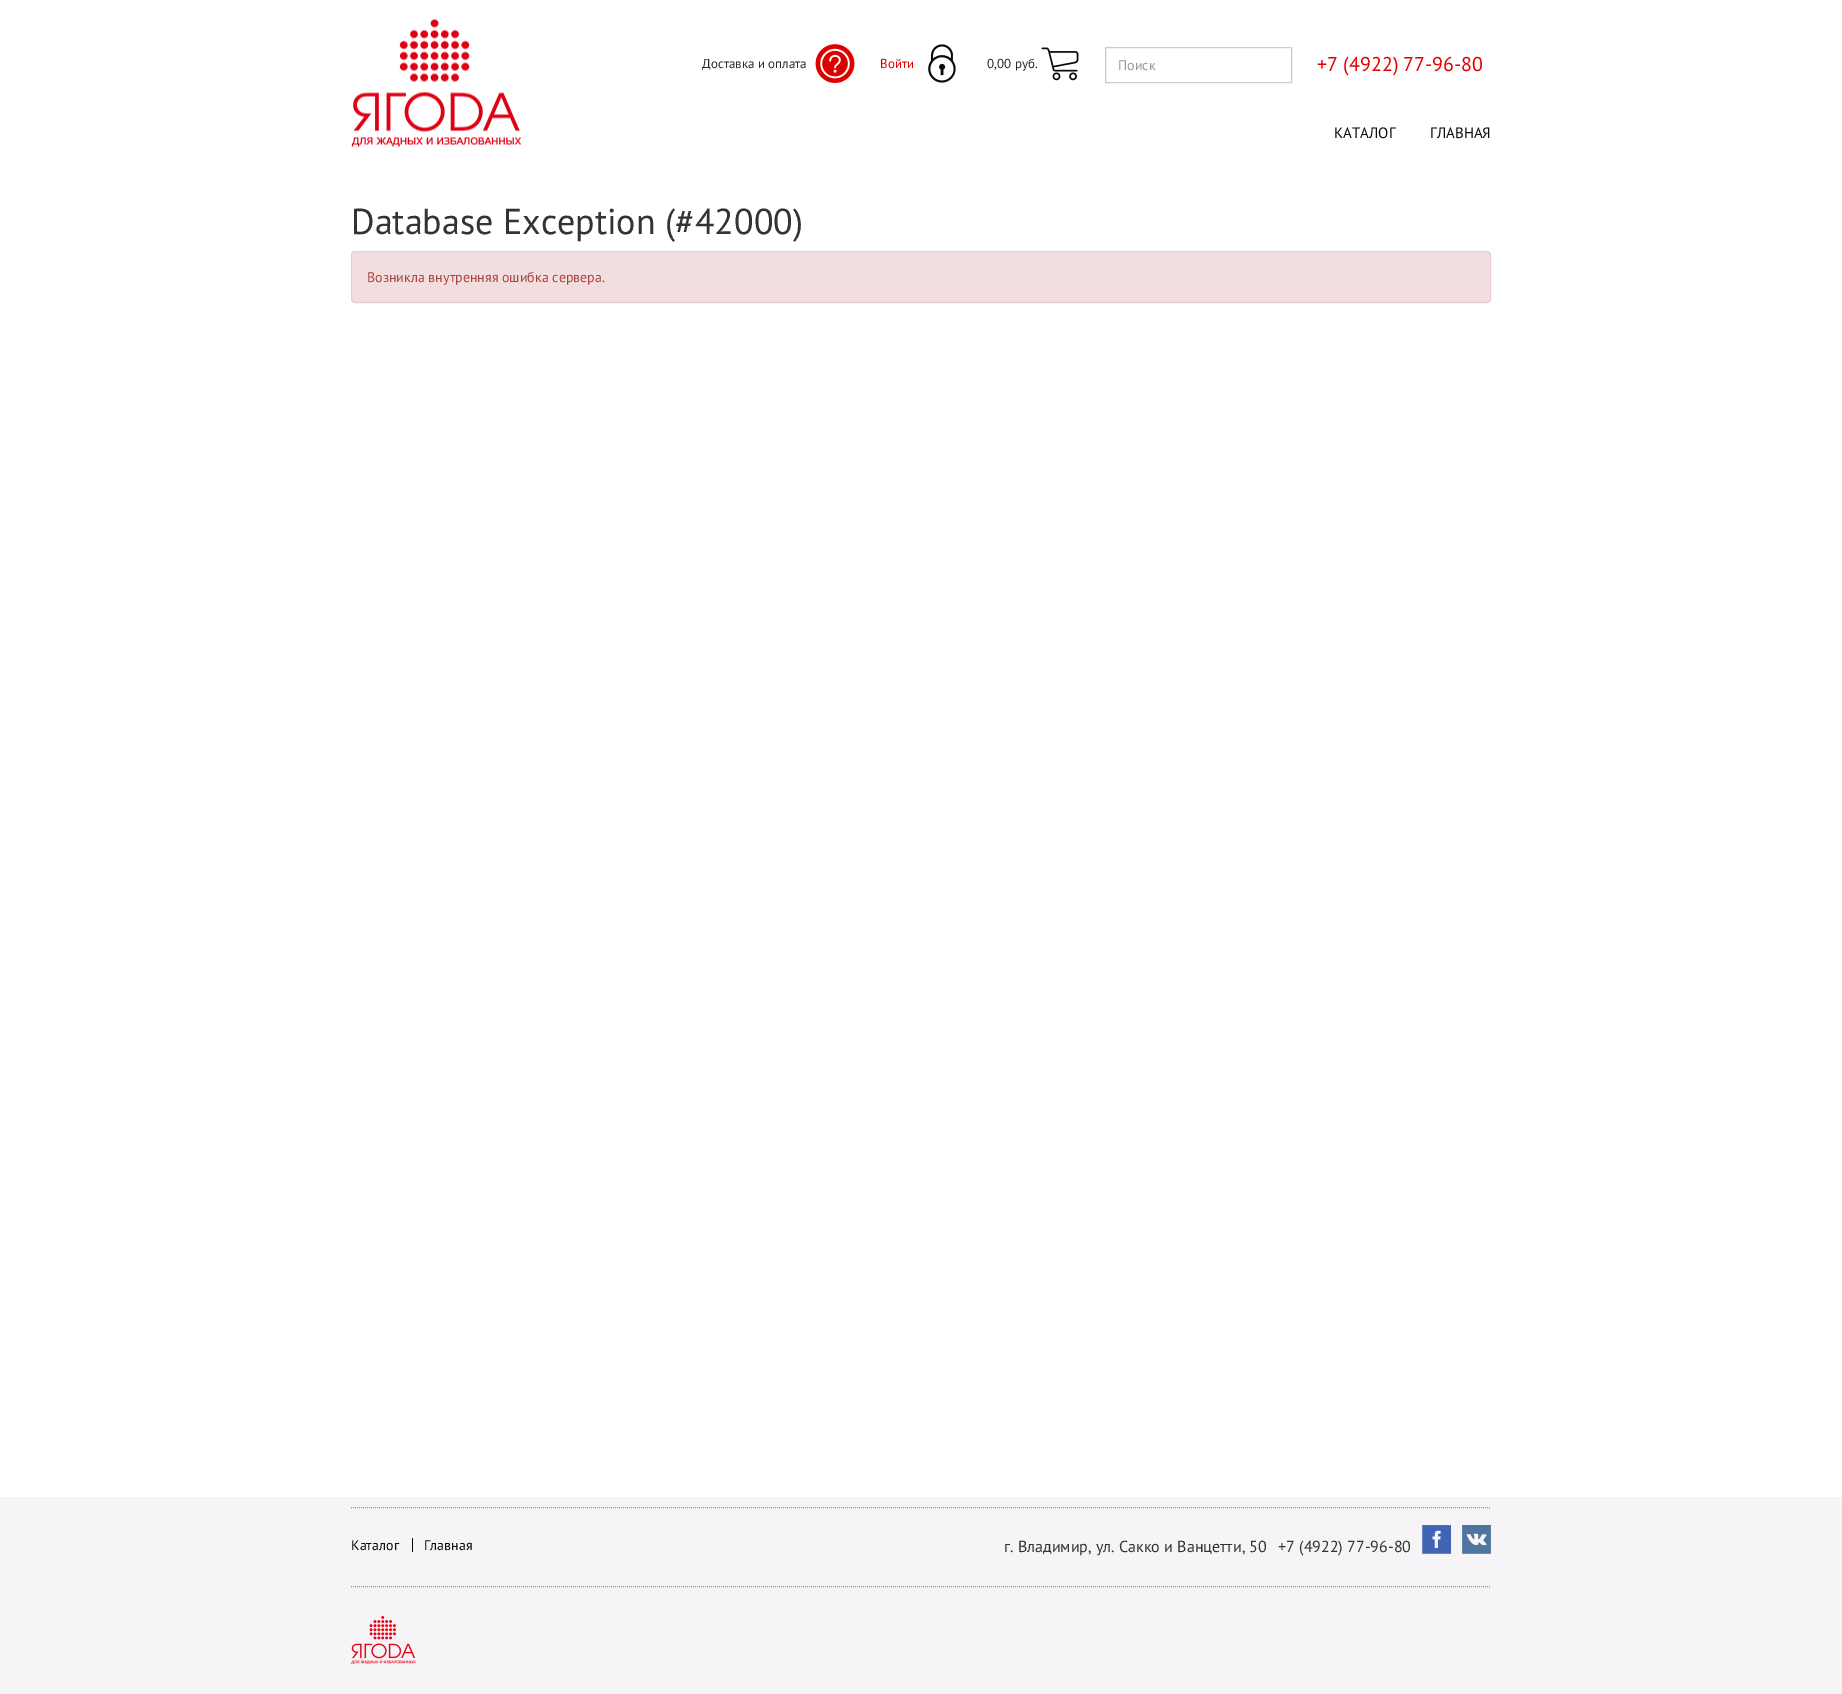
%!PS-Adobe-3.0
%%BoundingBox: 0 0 1842 1694
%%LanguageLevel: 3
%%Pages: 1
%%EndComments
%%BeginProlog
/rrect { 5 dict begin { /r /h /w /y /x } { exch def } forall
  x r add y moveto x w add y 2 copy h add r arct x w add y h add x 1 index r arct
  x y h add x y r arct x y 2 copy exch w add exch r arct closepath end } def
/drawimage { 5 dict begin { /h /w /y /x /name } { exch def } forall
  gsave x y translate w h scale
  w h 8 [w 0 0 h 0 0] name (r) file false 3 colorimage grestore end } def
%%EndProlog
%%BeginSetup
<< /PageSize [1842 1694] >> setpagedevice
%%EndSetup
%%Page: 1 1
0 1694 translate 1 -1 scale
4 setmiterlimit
1 setgray
0 0 1842 1694 rectfill
(images/1.raw) 351 19 171 128 drawimage
(images/2.raw) 815 44 40 39 drawimage
(images/3.raw) 928 44 28 39 drawimage
(images/4.raw) 1041 47 38 34 drawimage
0.8 setgray
1105.5 47.5 186 35 rectstroke
0.949 0.871 0.871 setrgbcolor
351.5 251.5 1139 51 3.5 rrect gsave fill grestore
0.922 0.8 0.82 setrgbcolor
stroke
0.965 0.957 0.965 setrgbcolor
0 1497 1842 197 rectfill
0.576 setgray
[1 1] 0 setdash
newpath 351 1507.5 moveto 1491 1507.5 lineto stroke
0.043 setgray
412 1538 1 14 rectfill
(images/5.raw) 1422 1525 29 29 drawimage
(images/6.raw) 1462 1525 29 29 drawimage
0.576 setgray
newpath 351 1586.5 moveto 1491 1586.5 lineto stroke
(images/7.raw) 351 1616 65 48 drawimage
/PTSans-Regular [13 0 0 -13 0 0] selectfont
0.169 setgray
702 68 moveto (Доставка и оплата) show
0.875 0 0.004 setrgbcolor
880 68 moveto (Войти) show
0.169 setgray
987 68 moveto (0,00 руб.) show
/PTSans-Regular [14 0 0 -14 0 0] selectfont
0.6 setgray
1118 70 moveto (Поиск) show
/PTSans-Regular [20 0 0 -20 0 0] selectfont
0.875 0 0.004 setrgbcolor
1317 71 moveto (+7 \(4922\) 77-96-80) show
/PTSans-Regular [15 0 0 -15 0 0] selectfont
0.043 setgray
1334 138 moveto (КАТАЛОГ) show
1430 138 moveto (ГЛАВНАЯ) show
/PTSans-Regular [36 0 0 -36 0 0] selectfont
0.2 setgray
351 234 moveto (Database Exception \(#42000\)) show
/PTSans-Regular [14 0 0 -14 0 0] selectfont
0.663 0.267 0.259 setrgbcolor
367 282 moveto (Возникла внутренняя ошибка сервера.) show
0.043 setgray
351 1550 moveto (Каталог) show
424 1550 moveto (Главная) show
/PTSans-Regular [16 0 0 -16 0 0] selectfont
0.2 setgray
1004 1552 moveto (г. Владимир, ул. Сакко и Ванцетти, 50) show
1278 1552 moveto (+7 \(4922\) 77-96-80) show
showpage
%%EOF
